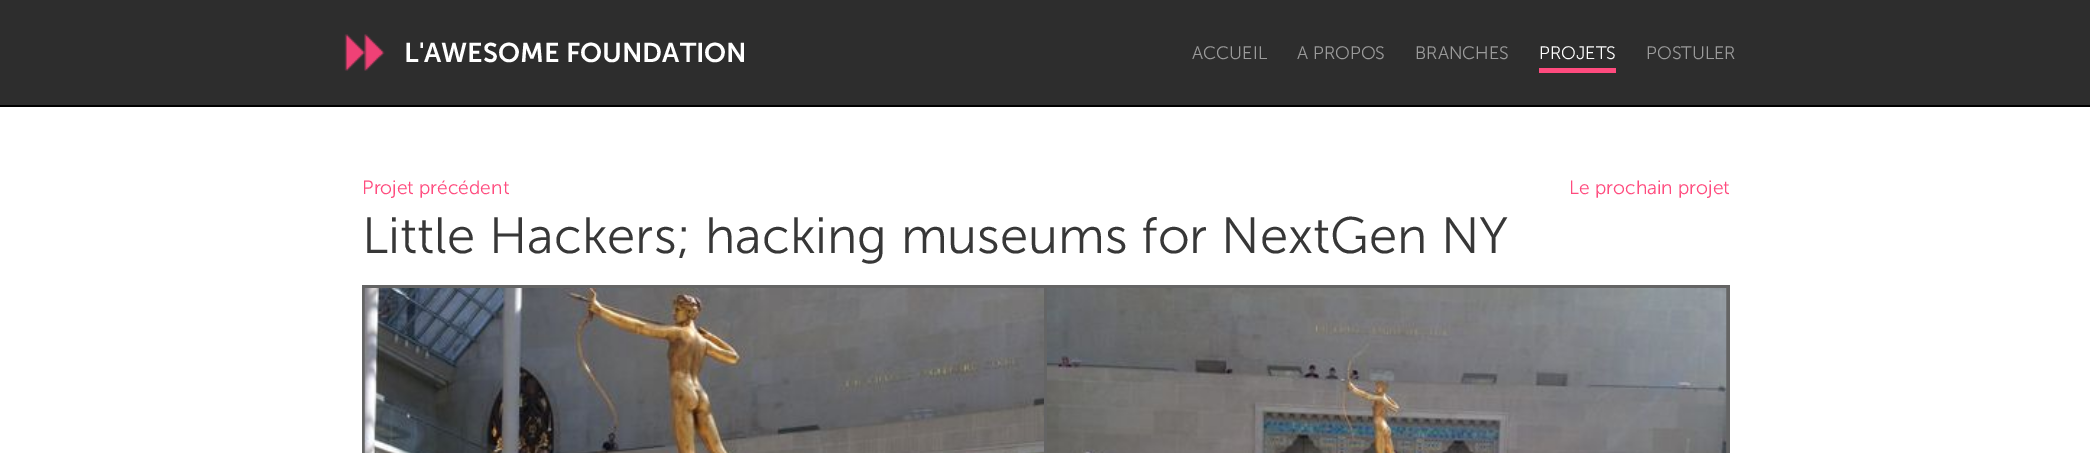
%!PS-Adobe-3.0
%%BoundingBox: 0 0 2090 453
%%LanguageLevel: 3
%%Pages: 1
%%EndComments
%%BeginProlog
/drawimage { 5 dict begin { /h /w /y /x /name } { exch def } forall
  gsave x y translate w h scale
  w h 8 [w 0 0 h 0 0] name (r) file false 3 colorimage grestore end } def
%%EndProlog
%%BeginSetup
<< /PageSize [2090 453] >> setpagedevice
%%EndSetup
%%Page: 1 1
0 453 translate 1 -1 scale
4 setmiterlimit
1 setgray
0 0 2090 453 rectfill
0.176 setgray
0 0 2090 105 rectfill
0 setgray
0 105 2090 2 rectfill
(images/1.raw) 344 34 41 37 drawimage
1 0.294 0.494 setrgbcolor
1539 68 77 5 rectfill
0.392 setgray
362 285 1368 168 rectfill
(images/2.raw) 364 288 680 165 drawimage
(images/3.raw) 1047 288 680 165 drawimage
/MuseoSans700-SemiBold [27 0 0 -27 0 0] selectfont
1 setgray
404 62 moveto (L'AWESOME FOUNDATION) show
/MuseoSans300-Light [18 0 0 -18 0 0] selectfont
0.608 setgray
1192 59 moveto (ACCUEIL) show
1297 59 moveto (A PROPOS) show
1415 59 moveto (BRANCHES) show
1 setgray
1539 59 moveto (PROJETS) show
0.608 setgray
1646 59 moveto (POSTULER) show
/MuseoSans300-Light [19.25 0 0 -19.25 0 0] selectfont
1 0.294 0.494 setrgbcolor
362 194 moveto (Projet précédent) show
1569 194 moveto (Le prochain projet) show
/MuseoSans300-Light [51 0 0 -51 0 0] selectfont
0.216 setgray
362 253 moveto (Little Hackers; hacking museums for NextGen NY) show
showpage
%%EOF
